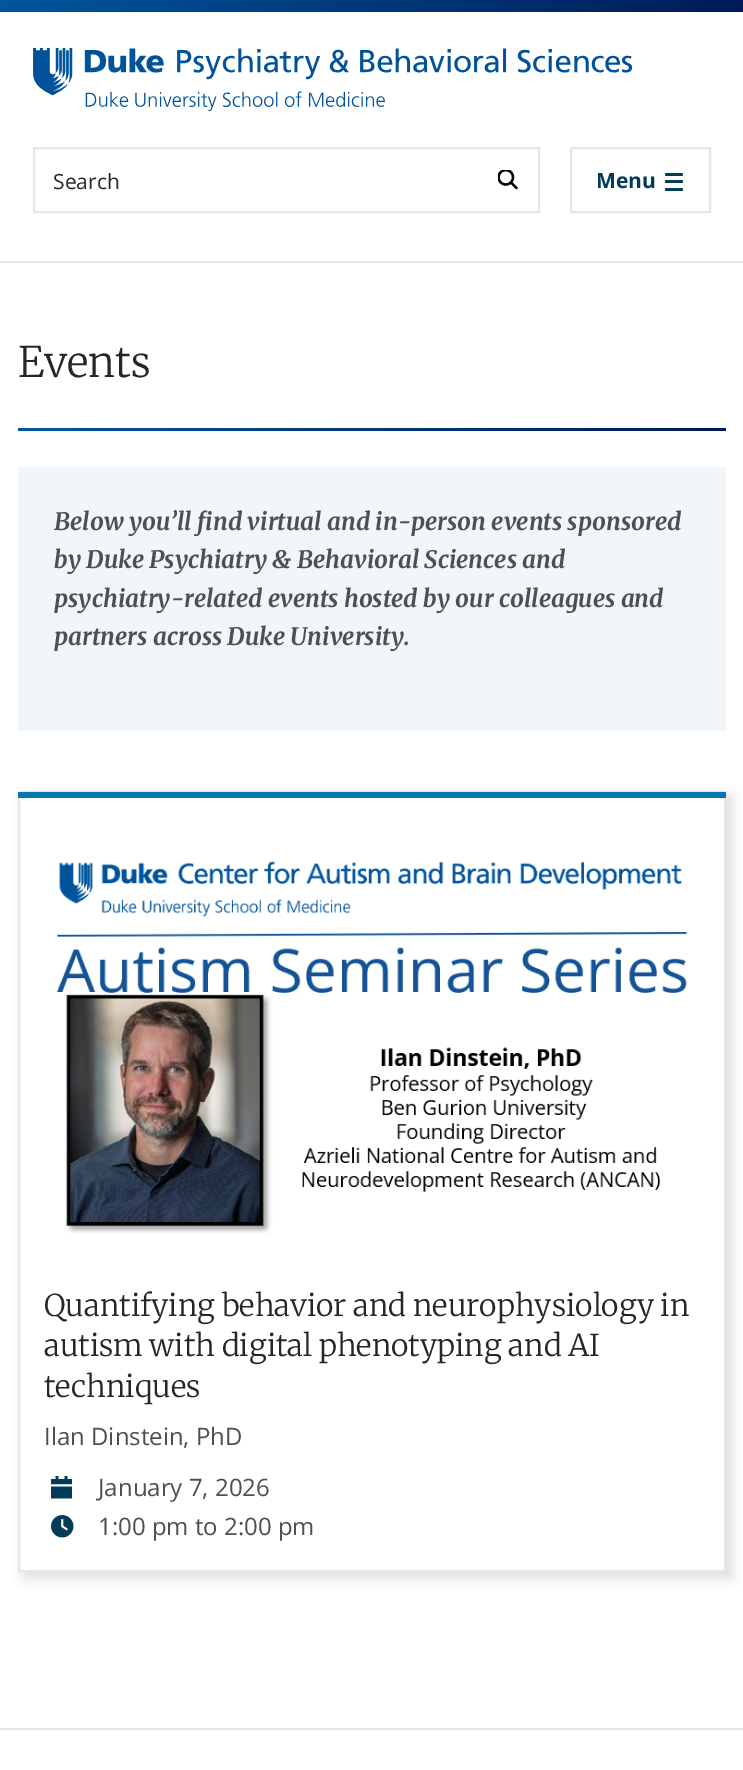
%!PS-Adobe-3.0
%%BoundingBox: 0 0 743 1770
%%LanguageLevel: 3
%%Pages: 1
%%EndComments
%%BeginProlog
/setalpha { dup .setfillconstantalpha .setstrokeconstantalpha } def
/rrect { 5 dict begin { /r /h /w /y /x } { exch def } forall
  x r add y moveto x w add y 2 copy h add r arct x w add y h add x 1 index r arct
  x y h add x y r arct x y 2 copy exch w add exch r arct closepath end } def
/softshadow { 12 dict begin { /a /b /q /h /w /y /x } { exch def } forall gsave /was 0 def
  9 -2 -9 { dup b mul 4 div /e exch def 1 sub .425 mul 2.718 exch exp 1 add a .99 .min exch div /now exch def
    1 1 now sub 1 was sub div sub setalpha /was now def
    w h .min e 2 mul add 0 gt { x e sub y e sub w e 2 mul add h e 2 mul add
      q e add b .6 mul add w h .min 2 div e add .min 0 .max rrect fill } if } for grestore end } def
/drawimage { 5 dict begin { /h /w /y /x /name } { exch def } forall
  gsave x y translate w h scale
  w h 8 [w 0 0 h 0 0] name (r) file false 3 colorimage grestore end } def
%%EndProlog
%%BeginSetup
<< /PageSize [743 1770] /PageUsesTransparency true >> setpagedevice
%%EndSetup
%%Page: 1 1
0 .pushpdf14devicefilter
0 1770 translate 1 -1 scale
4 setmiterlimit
1 setgray
0 0 743 1770 rectfill
gsave newpath 0 0 moveto 743 0 lineto 743 12 lineto 0 12 lineto closepath clip newpath
<< /ShadingType 2 /ColorSpace /DeviceRGB /Coords [234 -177 510 189] /Extend [true true] /Function << /FunctionType 2 /Domain [0 1] /C0 [0 0.337 0.616] /C1 [0 0.102 0.341] /N 1 >> >> shfill grestore
(images/1.raw) 33 48 600 63 drawimage
0.902 setgray
2 setlinewidth
34 148 505 64 rectstroke
(images/2.raw) 498 170 20 20 drawimage
571 148 139 64 rectstroke
0.012 0.235 0.349 setrgbcolor
665 180 18 3 1.5 rrect fill
665 173 18 3 1.5 rrect fill
665 188 18 3 1.5 rrect fill
0.902 setgray
0 261 743 2 rectfill
gsave newpath 18 428 moveto 726 428 lineto 726 431 lineto 18 431 lineto closepath clip newpath
<< /ShadingType 2 /ColorSpace /DeviceRGB /Coords [18 429 726 429] /Extend [true true] /Function << /FunctionType 2 /Domain [0 1] /C0 [0 0.337 0.616] /C1 [0 0.102 0.341] /N 1 >> >> shfill grestore
0.949 0.965 0.98 setrgbcolor
18 467 708 264 rectfill
gsave
newpath 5 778 moveto 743 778 lineto 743 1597 lineto 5 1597 lineto closepath 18 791 moveto 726 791 lineto 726 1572 lineto 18 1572 lineto closepath eoclip newpath
0.149 setgray
24 797 708 781 0 6 0.15 softshadow
grestore
0.902 setgray
19 792 706 779 rectstroke
0.02 0.467 0.694 setrgbcolor
18 792 708 6 rectfill
(images/3.raw) 56 861 631 373 drawimage
(images/4.raw) 51 1476 21 23 drawimage
(images/5.raw) 51 1515 23 23 drawimage
0.902 setgray
0 1728 743 2 rectfill
/OpenSans-Regular [21 0 0 -21 0 0] selectfont
0.149 setgray
53 189 moveto (Search) show
/OpenSans-Bold [21 0 0 -21 0 0] selectfont
0.012 0.235 0.349 setrgbcolor
596 188 moveto (Menu) show
/Merriweather-Light [42 0 0 -42 0 0] selectfont
0.149 setgray
18 377 moveto (Events) show
/Merriweather-BoldItalic [24 0 0 -24 0 0] selectfont
0.306 0.31 0.318 setrgbcolor
54 530 moveto (Below you’ll find virtual and in-person events sponsored) show
54 568 moveto (by Duke Psychiatry & Behavioral Sciences and) show
54 607 moveto (psychiatry-related events hosted by our colleagues and) show
54 645 moveto (partners across Duke University.) show
/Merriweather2-Light [30 0 0 -30 0 0] selectfont
0.149 setgray
44 1316 moveto -0.5 0 32 (Quantifying behavior and neurophysiology in) widthshow
44 1356 moveto -0.5 0 32 (autism with digital phenotyping and AI) widthshow
44 1397 moveto (techniques) show
/OpenSans-Regular [24 0 0 -24 0 0] selectfont
0.306 0.31 0.318 setrgbcolor
44 1445 moveto (Ilan Dinstein, PhD) show
98 1496 moveto (January 7, 2026) show
98 1535 moveto (1:00 pm to 2:00 pm) show
.poppdf14devicefilter showpage
%%EOF
